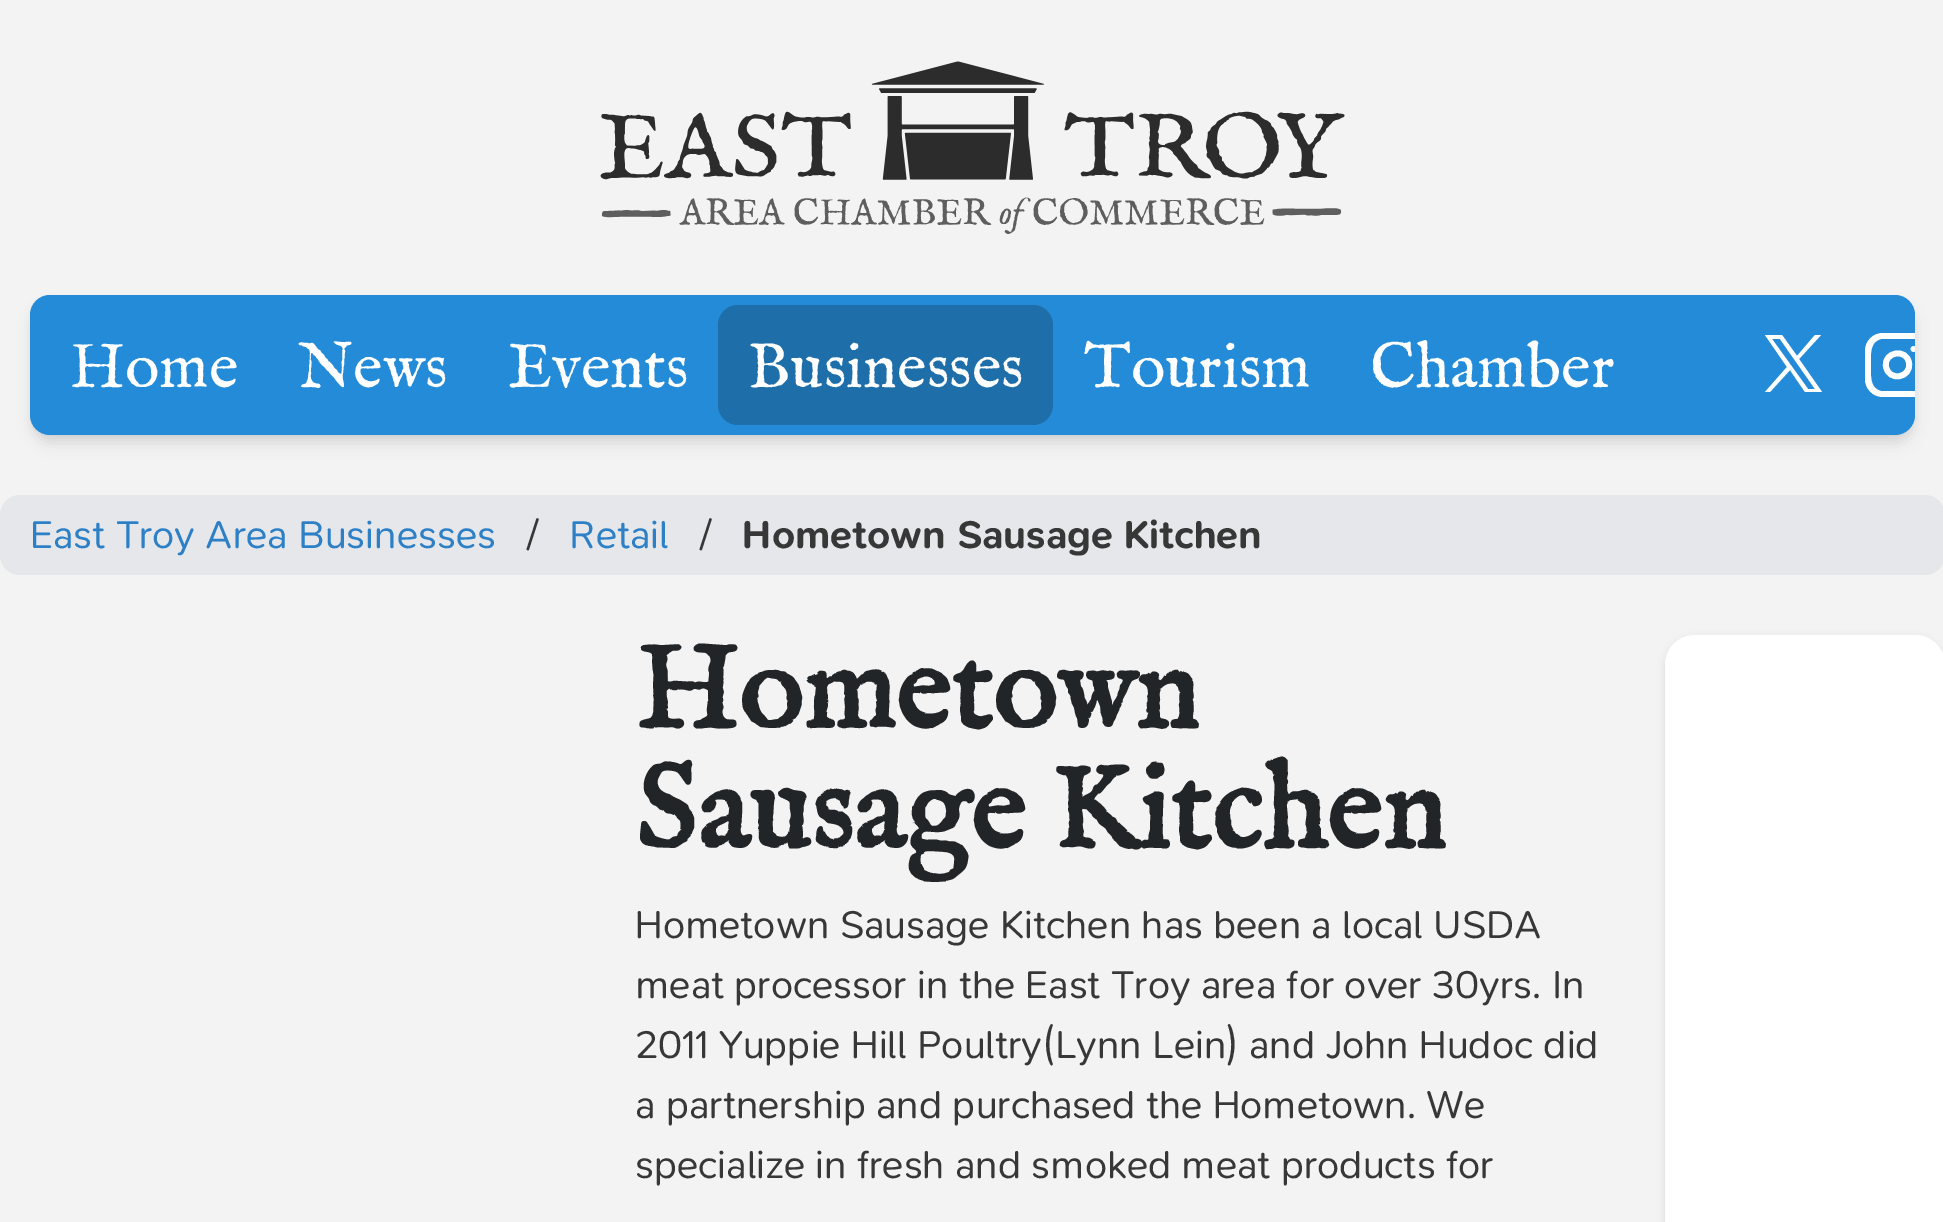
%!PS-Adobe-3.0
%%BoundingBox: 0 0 1943 1222
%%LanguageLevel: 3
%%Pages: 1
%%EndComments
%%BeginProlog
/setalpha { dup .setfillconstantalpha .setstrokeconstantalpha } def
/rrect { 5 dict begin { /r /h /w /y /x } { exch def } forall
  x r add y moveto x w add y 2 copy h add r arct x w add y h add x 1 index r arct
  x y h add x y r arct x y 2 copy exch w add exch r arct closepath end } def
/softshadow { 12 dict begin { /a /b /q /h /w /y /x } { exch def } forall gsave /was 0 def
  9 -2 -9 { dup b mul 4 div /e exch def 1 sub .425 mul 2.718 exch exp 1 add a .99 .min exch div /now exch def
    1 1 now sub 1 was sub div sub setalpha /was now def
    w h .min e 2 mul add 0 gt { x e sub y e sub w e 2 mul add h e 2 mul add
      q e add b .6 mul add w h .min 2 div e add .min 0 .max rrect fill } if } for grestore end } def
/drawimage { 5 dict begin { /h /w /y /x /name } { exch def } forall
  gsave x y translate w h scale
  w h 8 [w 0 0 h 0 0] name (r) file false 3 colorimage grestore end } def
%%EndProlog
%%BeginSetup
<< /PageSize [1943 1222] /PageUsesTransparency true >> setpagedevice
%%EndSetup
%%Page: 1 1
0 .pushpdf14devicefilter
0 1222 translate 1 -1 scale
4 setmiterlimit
0.953 setgray
0 0 1943 1222 rectfill
(images/1.raw) 600 61 745 173 drawimage
0 setgray
35 305 1875 130 15 5 0.1 softshadow
33 308 1880 135 18 7.5 0.1 softshadow
0.137 0.545 0.843 setrgbcolor
30 295 1885 140 20 rrect fill
0.118 0.435 0.663 setrgbcolor
718 305 335 120 20 rrect fill
1 setgray
newpath 1799 359 moveto 1821 335 lineto 1815 335 lineto 1797 356 lineto 1782 335 lineto 1765 335 lineto 1787 367 lineto 1765 392 lineto 1770 392 lineto 1790 370 lineto 1805 392 lineto 1822 392 lineto 1772 339 moveto 1780 339 lineto 1815 389 lineto 1808 389 lineto fill
newpath 1883 333 moveto 1873 333 1865 341 1865 351 curveto 1865 379 lineto 1865 389 1873 397 1883 397 curveto 1915 397 lineto 1915 391 lineto 1881 391 lineto 1869 388 1871 374 1871 365 curveto 1871 356 1869 342 1881 339 curveto 1915 339 lineto 1915 333 lineto 1912 333 lineto closepath fill
5.8 setlinewidth
1 setlinecap
1 setlinejoin
newpath 1909 363 moveto 1911.5 378 1888.5 382 1886 366.5 curveto 1883.5 351.5 1907 348 1909 363 curveto closepath stroke
gsave
30 295 1885 140 20 rrect clip newpath
newpath 1913.5 349 moveto 1913.5 349 lineto stroke
grestore
0.898 0.906 0.922 setrgbcolor
0 495 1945 80 20 rrect fill
0 setgray
1665 638 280 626 30 4 0.1 softshadow
1 setgray
1665 635 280 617 30 rrect fill
/IMFELLEnglish-Regular [64 0 0 -64 0 0] selectfont
70 387 moveto (Home) show
298 387 moveto (News) show
508 387 moveto (Events) show
748 387 moveto (Businesses) show
1084 387 moveto (Tourism) show
1370 387 moveto (Chamber) show
/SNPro-Regular [40 0 0 -40 0 0] selectfont
0.176 0.498 0.776 setrgbcolor
30 548 moveto (East Troy Area Businesses) show
0.216 setgray
527 548 moveto (/) show
0.176 0.498 0.776 setrgbcolor
569 548 moveto (Retail) show
0.216 setgray
700 548 moveto (/) show
/SNPro-Bold [40 0 0 -40 0 0] selectfont
742 548 moveto (Hometown Sausage Kitchen) show
/IMFELLEnglish-Bold [120 0 0 -120 0 0] selectfont
0.129 0.145 0.157 setrgbcolor
635 728 moveto (Hometown) show
635 848 moveto (Sausage Kitchen) show
/SNPro-Regular [40 0 0 -40 0 0] selectfont
0.216 setgray
635 938 moveto (Hometown Sausage Kitchen has been a local USDA) show
635 998 moveto (meat processor in the East Troy area for over 30yrs. In) show
635 1058 moveto (2011 Yuppie Hill Poultry\(Lynn Lein\) and John Hudoc did) show
635 1118 moveto (a partnership and purchased the Hometown. We) show
635 1178 moveto (specialize in fresh and smoked meat products for) show
.poppdf14devicefilter showpage
%%EOF
